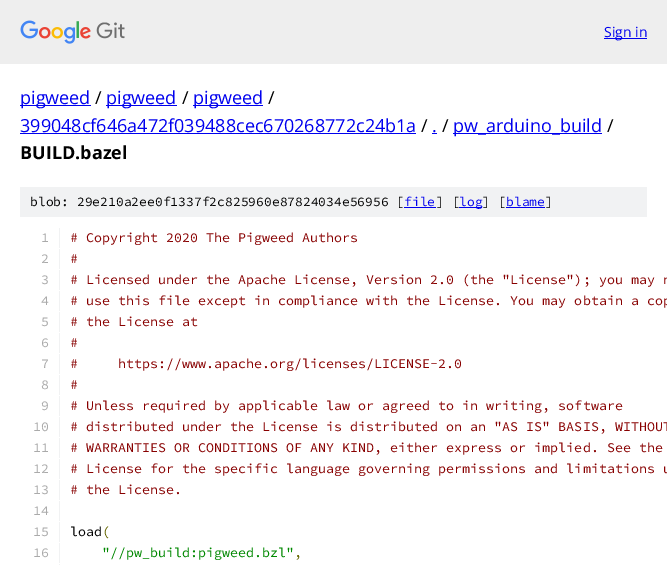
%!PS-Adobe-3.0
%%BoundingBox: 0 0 667 565
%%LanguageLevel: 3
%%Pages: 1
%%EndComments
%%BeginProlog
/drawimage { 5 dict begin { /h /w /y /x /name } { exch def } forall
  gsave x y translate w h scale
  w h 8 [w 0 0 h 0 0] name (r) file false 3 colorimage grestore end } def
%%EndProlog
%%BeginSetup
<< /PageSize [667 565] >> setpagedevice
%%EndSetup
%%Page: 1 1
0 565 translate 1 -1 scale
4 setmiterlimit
1 setgray
0 0 667 565 rectfill
0.933 setgray
0 0 667 64 rectfill
(images/1.raw) 20 20 105 24 drawimage
0 0 0.933 setrgbcolor
604 38 43 1 rectfill
20 105 71 1 rectfill
106 105 71 1 rectfill
193 105 70 1 rectfill
20 133 396 1 rectfill
432 133 5 1 rectfill
453 133 149 1 rectfill
0.945 0.949 0.953 setrgbcolor
20 187 627 30 rectfill
0 0 0.933 setrgbcolor
404 207 32 1 rectfill
459 207 23 1 rectfill
506 207 39 1 rectfill
0.945 0.949 0.953 setrgbcolor
59 228 1 20 rectfill
59 249 1 20 rectfill
59 270 1 20 rectfill
59 291 1 20 rectfill
59 312 1 20 rectfill
59 333 1 20 rectfill
59 354 1 20 rectfill
59 375 1 20 rectfill
59 396 1 20 rectfill
59 417 1 20 rectfill
59 438 1 20 rectfill
59 459 1 20 rectfill
59 480 1 20 rectfill
59 501 1 20 rectfill
59 522 1 20 rectfill
59 543 1 20 rectfill
59 564 1 1 rectfill
/OpenSans-Regular [14 0 0 -14 0 0] selectfont
0 0 0.933 setrgbcolor
604 37 moveto (Sign in) show
/OpenSans-Regular [18 0 0 -18 0 0] selectfont
20 104 moveto (pigweed) show
0 setgray
95 104 moveto (/) show
0 0 0.933 setrgbcolor
106 104 moveto (pigweed) show
0 setgray
182 104 moveto (/) show
0 0 0.933 setrgbcolor
193 104 moveto (pigweed) show
0 setgray
268 104 moveto (/) show
0 0 0.933 setrgbcolor
20 132 moveto (399048cf646a472f039488cec670268772c24b1a) show
0 setgray
421 132 moveto (/) show
0 0 0.933 setrgbcolor
432 132 moveto (.) show
0 setgray
442 132 moveto (/) show
0 0 0.933 setrgbcolor
453 132 moveto (pw_arduino_build) show
0 setgray
607 132 moveto (/) show
/OpenSans-Bold [18 0 0 -18 0 0] selectfont
20 159 moveto (BUILD.bazel) show
/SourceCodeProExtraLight-ExtraLight [13 0 0 -13 0 0] selectfont
30 206 moveto (blob: 29e210a2ee0f1337f2c825960e87824034e56956 [) show
0 0 0.933 setrgbcolor
404 206 moveto (file) show
0 setgray
436 206 moveto (] [) show
0 0 0.933 setrgbcolor
459 206 moveto (log) show
0 setgray
482 206 moveto (] [) show
0 0 0.933 setrgbcolor
506 206 moveto (blame) show
0 setgray
545 206 moveto (]) show
/SourceCodeProExtraLight-ExtraLight [13.35 0 0 -13.35 0 0] selectfont
0.667 setgray
41 242 moveto (1) show
0.533 0 0 setrgbcolor
70 242 moveto (# Copyright 2020 The Pigweed Authors) show
0.667 setgray
41 263 moveto (2) show
0.533 0 0 setrgbcolor
70 263 moveto (#) show
0.667 setgray
41 284 moveto (3) show
0.533 0 0 setrgbcolor
70 284 moveto (# Licensed under the Apache License, Version 2.0 \(the "License"\); you may n) show
0.667 setgray
41 305 moveto (4) show
0.533 0 0 setrgbcolor
70 305 moveto (# use this file except in compliance with the License. You may obtain a cop) show
0.667 setgray
41 326 moveto (5) show
0.533 0 0 setrgbcolor
70 326 moveto (# the License at) show
0.667 setgray
41 347 moveto (6) show
0.533 0 0 setrgbcolor
70 347 moveto (#) show
0.667 setgray
41 368 moveto (7) show
0.533 0 0 setrgbcolor
70 368 moveto (#     https://www.apache.org/licenses/LICENSE-2.0) show
0.667 setgray
41 389 moveto (8) show
0.533 0 0 setrgbcolor
70 389 moveto (#) show
0.667 setgray
41 410 moveto (9) show
0.533 0 0 setrgbcolor
70 410 moveto (# Unless required by applicable law or agreed to in writing, software) show
0.667 setgray
33 431 moveto (10) show
0.533 0 0 setrgbcolor
70 431 moveto (# distributed under the License is distributed on an "AS IS" BASIS, WITHOUT) show
0.667 setgray
33 452 moveto (11) show
0.533 0 0 setrgbcolor
70 452 moveto (# WARRANTIES OR CONDITIONS OF ANY KIND, either express or implied. See the) show
0.667 setgray
33 473 moveto (12) show
0.533 0 0 setrgbcolor
70 473 moveto (# License for the specific language governing permissions and limitations u) show
0.667 setgray
33 494 moveto (13) show
0.533 0 0 setrgbcolor
70 494 moveto (# the License.) show
0.667 setgray
33 515 moveto (14) show
33 536 moveto (15) show
0 setgray
70 536 moveto (load) show
0.4 0.4 0 setrgbcolor
102 536 moveto (\() show
0.667 setgray
33 557 moveto (16) show
0 0.533 0 setrgbcolor
102 557 moveto ("//pw_build:pigweed.bzl") show
0.4 0.4 0 setrgbcolor
294 557 moveto (,) show
showpage
%%EOF
